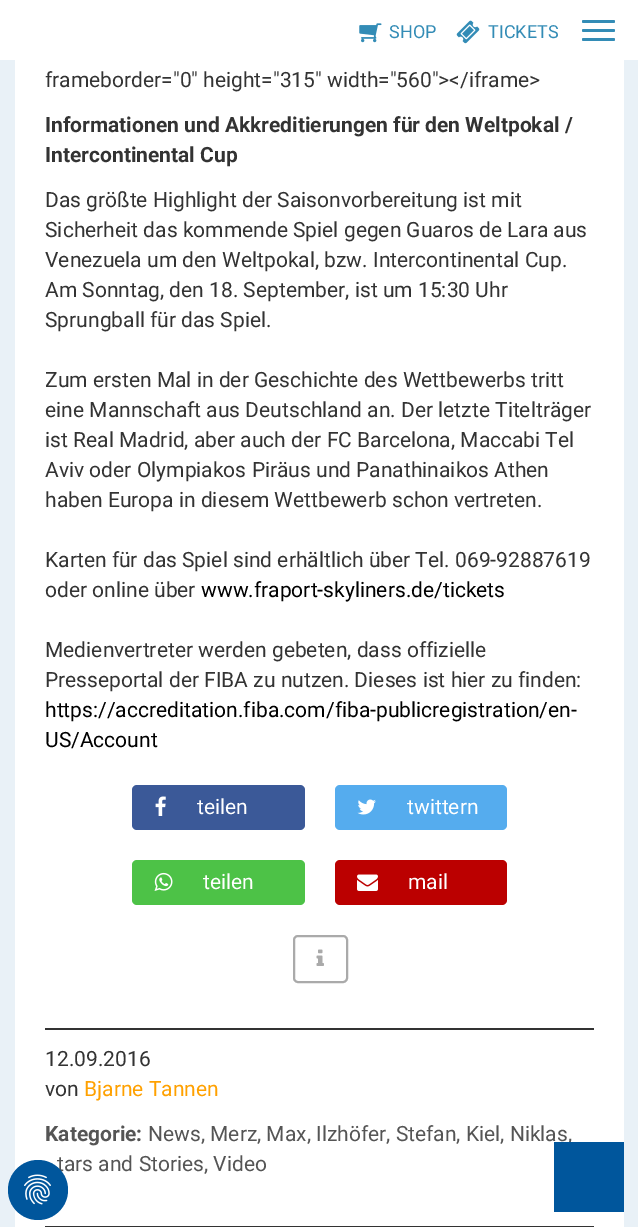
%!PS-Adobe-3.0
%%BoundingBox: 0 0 638 1227
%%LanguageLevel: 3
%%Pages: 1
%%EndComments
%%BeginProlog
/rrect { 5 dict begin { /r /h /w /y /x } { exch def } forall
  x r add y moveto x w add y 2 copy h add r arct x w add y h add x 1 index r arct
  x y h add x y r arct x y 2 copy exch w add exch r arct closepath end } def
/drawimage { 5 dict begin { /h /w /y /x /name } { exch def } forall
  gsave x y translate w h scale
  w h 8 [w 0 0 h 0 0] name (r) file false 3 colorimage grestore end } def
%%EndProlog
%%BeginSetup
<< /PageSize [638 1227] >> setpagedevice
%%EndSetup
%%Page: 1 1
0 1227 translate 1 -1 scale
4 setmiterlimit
0.914 0.945 0.969 setrgbcolor
0 0 638 1227 rectfill
1 setgray
0 0 638 60 rectfill
(images/1.raw) 359 23 23 20 drawimage
(images/2.raw) 456 20 24 24 drawimage
0.2 0.549 0.714 setrgbcolor
582 20 33 3 1.5 rrect fill
582 29 33 3 1.5 rrect fill
582 38 33 3 1.5 rrect fill
1 setgray
15 60 609 1167 rectfill
0.231 0.349 0.596 setrgbcolor
132 785 173 45 5 rrect fill
(images/3.raw) 155 796 11 20 drawimage
0.333 0.675 0.933 setrgbcolor
335 785 172 45 5 rrect fill
(images/4.raw) 357 799 19 16 drawimage
0.302 0.761 0.278 setrgbcolor
132 860 173 45 5 rrect fill
(images/5.raw) 154 872 19 19 drawimage
0.733 0 0 setrgbcolor
335 860 172 45 5 rrect fill
(images/6.raw) 357 874 21 17 drawimage
0.667 setgray
2 setlinewidth
294 936 53 46 4 rrect stroke
(images/7.raw) 316 949 8 17 drawimage
0.2 setgray
45 1028 549 2 rectfill
45 1226 549 1 rectfill
/Roboto-Regular [18 0 0 -18 0 0] selectfont
0.2 0.549 0.714 setrgbcolor
389 38 moveto (SHOP) show
488 38 moveto (TICKETS) show
/Roboto-Regular [21 0 0 -21 0 0] selectfont
0.2 setgray
45 87 moveto (frameborder="0" height="315" width="560"></iframe>) show
/Roboto-Bold [21 0 0 -21 0 0] selectfont
45 132 moveto (Informationen und Akkreditierungen für den Weltpokal /) show
45 162 moveto (Intercontinental Cup) show
/Roboto-Regular [21 0 0 -21 0 0] selectfont
45 207 moveto (Das größte Highlight der Saisonvorbereitung ist mit) show
45 237 moveto (Sicherheit das kommende Spiel gegen Guaros de Lara aus) show
45 267 moveto (Venezuela um den Weltpokal, bzw. Intercontinental Cup.) show
45 297 moveto (Am Sonntag, den 18. September, ist um 15:30 Uhr) show
45 327 moveto (Sprungball für das Spiel.) show
45 387 moveto (Zum ersten Mal in der Geschichte des Wettbewerbs tritt) show
45 417 moveto (eine Mannschaft aus Deutschland an. Der letzte Titelträger) show
45 447 moveto (ist Real Madrid, aber auch der FC Barcelona, Maccabi Tel) show
45 477 moveto (Aviv oder Olympiakos Piräus und Panathinaikos Athen) show
45 507 moveto (haben Europa in diesem Wettbewerb schon vertreten.) show
45 567 moveto (Karten für das Spiel sind erhältlich über Tel. 069-92887619) show
45 597 moveto (oder online über) show
0 setgray
201 597 moveto (www.fraport-skyliners.de/tickets) show
0.2 setgray
45 657 moveto (Medienvertreter werden gebeten, dass offizielle) show
45 687 moveto (Presseportal der FIBA zu nutzen. Dieses ist hier zu finden:) show
0 setgray
45 717 moveto (https://accreditation.fiba.com/fiba-publicregistration/en-) show
45 747 moveto (US/Account) show
1 setgray
197 814 moveto (teilen) show
407 814 moveto (twittern) show
203 889 moveto (teilen) show
408 889 moveto (mail) show
0.2 setgray
45 1066 moveto (12.09.2016) show
45 1096 moveto (von) show
1 0.631 0 setrgbcolor
84 1096 moveto (Bjarne Tannen) show
/Roboto-Bold [21 0 0 -21 0 0] selectfont
0.333 setgray
45 1141 moveto (Kategorie:) show
/Roboto-Regular [21 0 0 -21 0 0] selectfont
148 1141 moveto (News, Merz, Max, Ilzhöfer, Stefan, Kiel, Niklas,) show
57 1171 moveto (tars and Stories, Video) show
0 0.337 0.612 setrgbcolor
554 1142 70 70 rectfill
newpath 38 1190 30 0 360 arc closepath fill
(images/8.raw) 24 1174 27 31 drawimage
showpage
%%EOF
